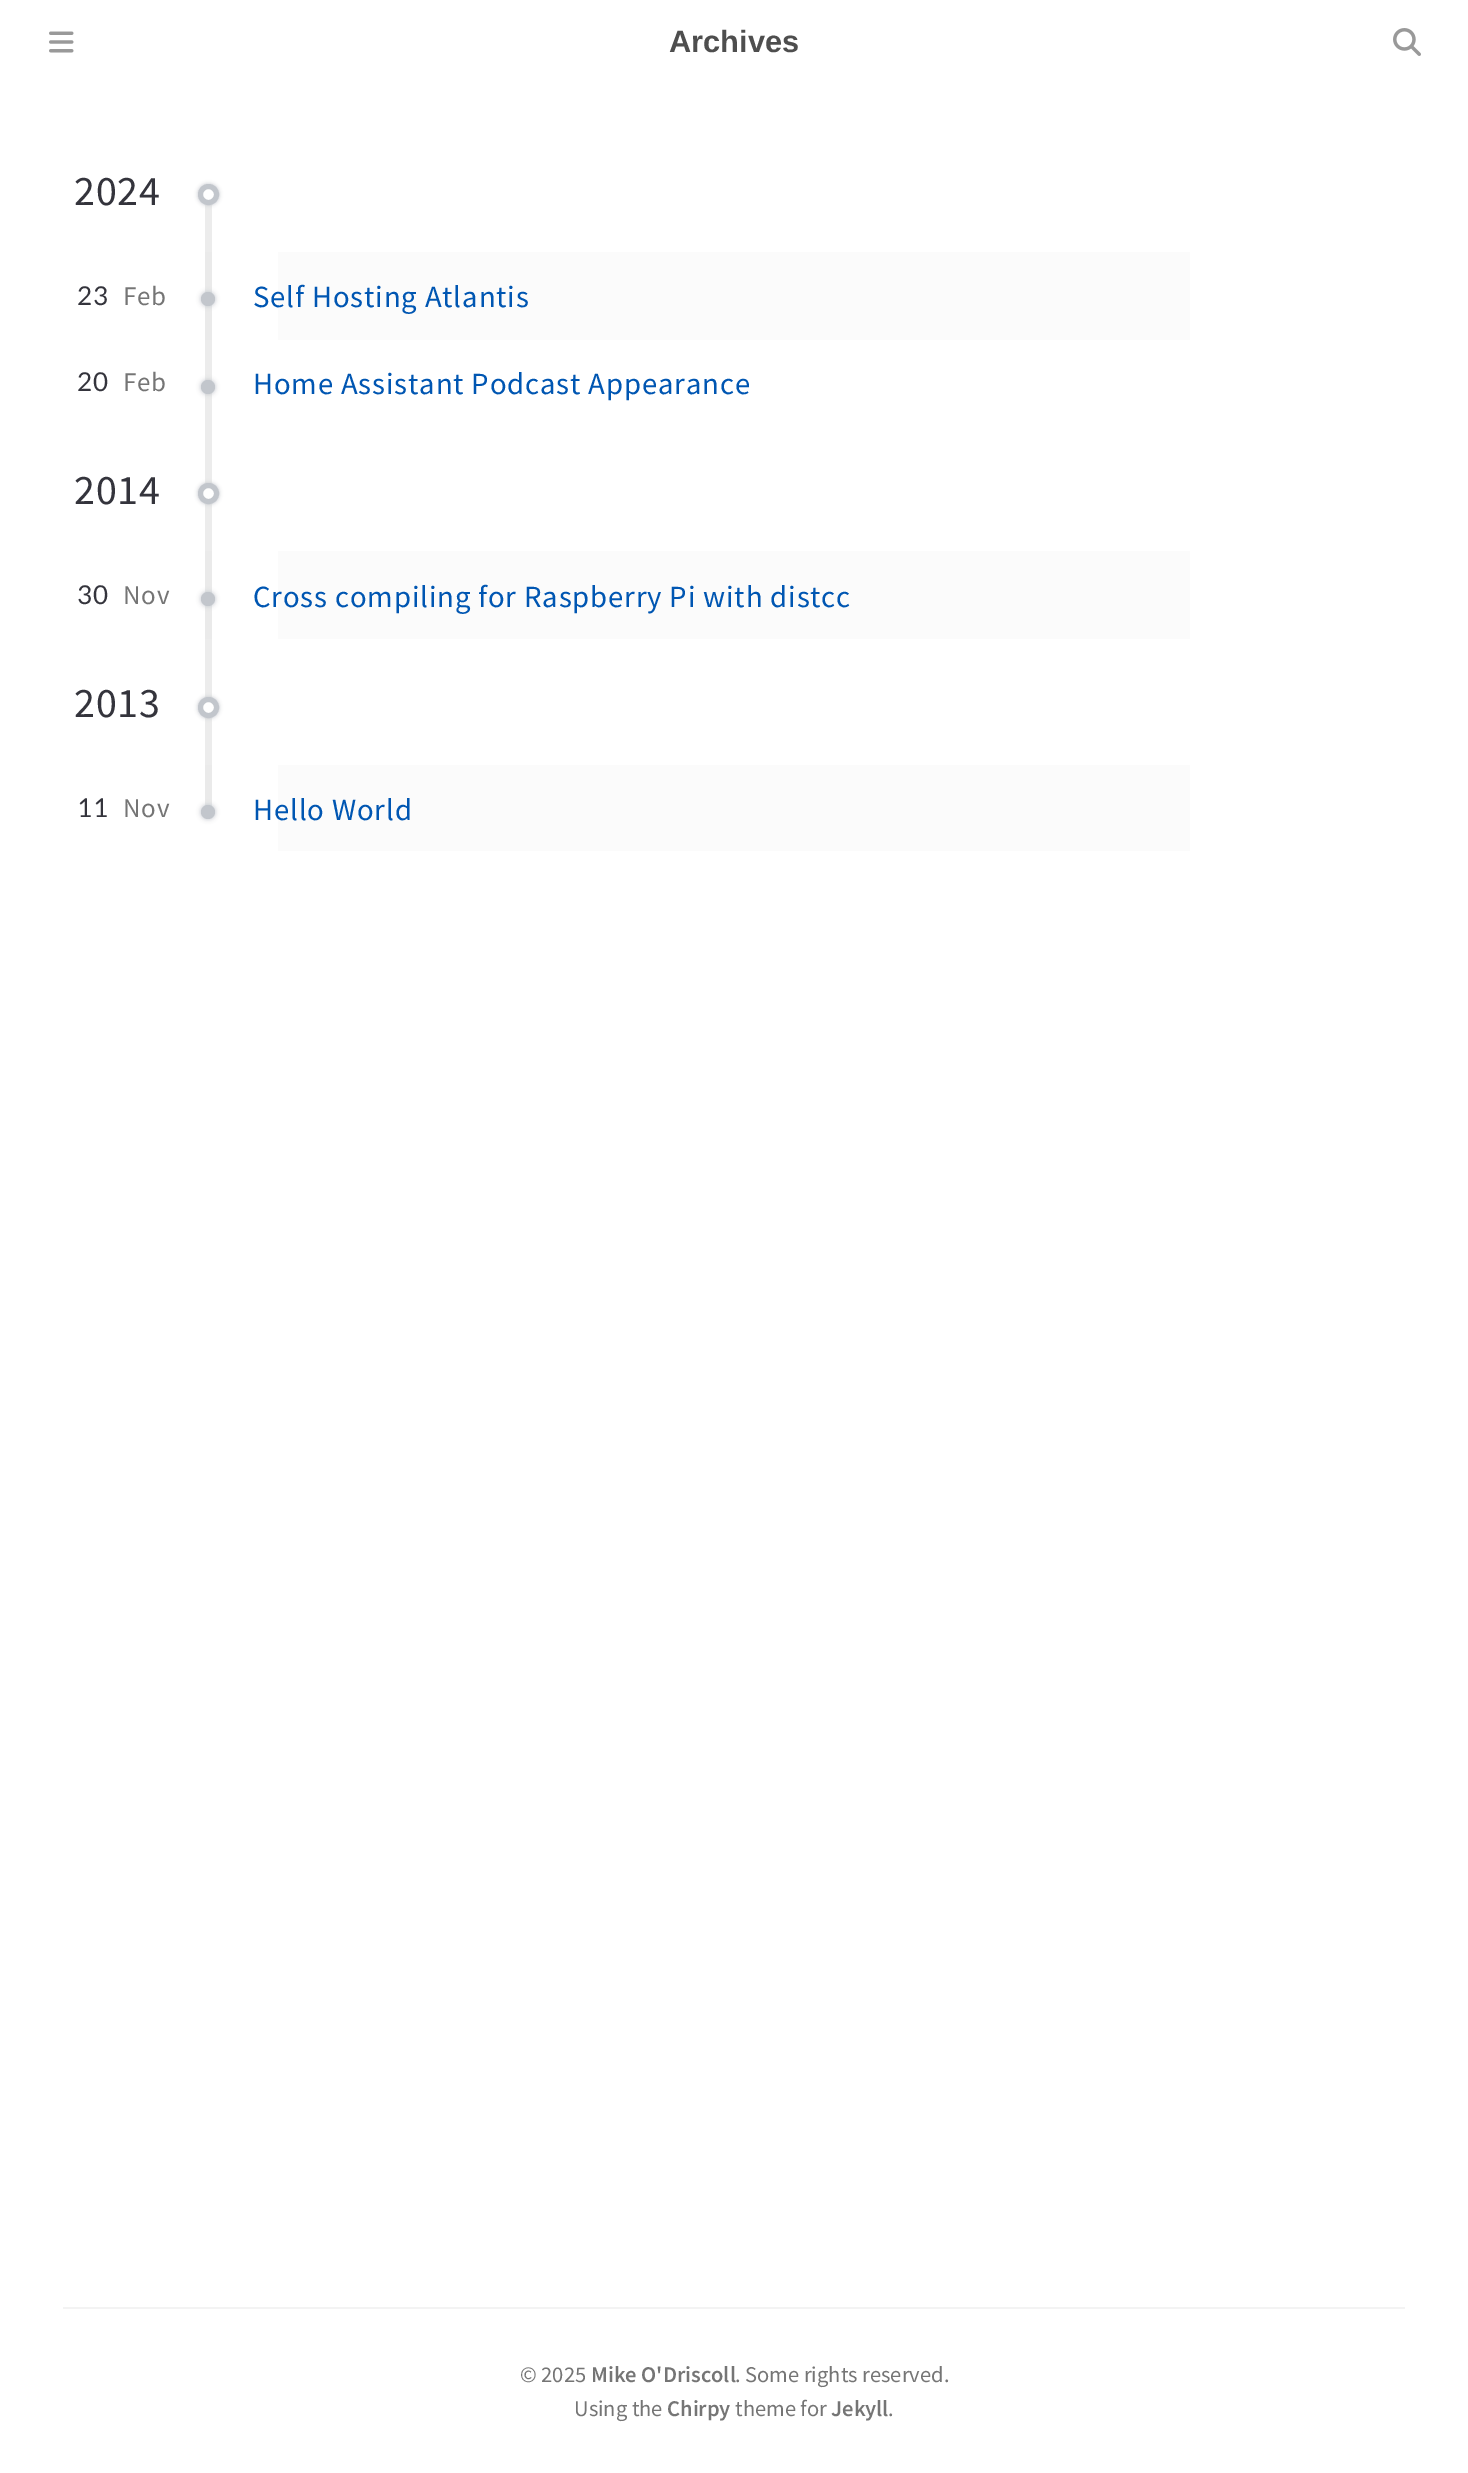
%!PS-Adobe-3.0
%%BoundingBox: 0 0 1468 2473
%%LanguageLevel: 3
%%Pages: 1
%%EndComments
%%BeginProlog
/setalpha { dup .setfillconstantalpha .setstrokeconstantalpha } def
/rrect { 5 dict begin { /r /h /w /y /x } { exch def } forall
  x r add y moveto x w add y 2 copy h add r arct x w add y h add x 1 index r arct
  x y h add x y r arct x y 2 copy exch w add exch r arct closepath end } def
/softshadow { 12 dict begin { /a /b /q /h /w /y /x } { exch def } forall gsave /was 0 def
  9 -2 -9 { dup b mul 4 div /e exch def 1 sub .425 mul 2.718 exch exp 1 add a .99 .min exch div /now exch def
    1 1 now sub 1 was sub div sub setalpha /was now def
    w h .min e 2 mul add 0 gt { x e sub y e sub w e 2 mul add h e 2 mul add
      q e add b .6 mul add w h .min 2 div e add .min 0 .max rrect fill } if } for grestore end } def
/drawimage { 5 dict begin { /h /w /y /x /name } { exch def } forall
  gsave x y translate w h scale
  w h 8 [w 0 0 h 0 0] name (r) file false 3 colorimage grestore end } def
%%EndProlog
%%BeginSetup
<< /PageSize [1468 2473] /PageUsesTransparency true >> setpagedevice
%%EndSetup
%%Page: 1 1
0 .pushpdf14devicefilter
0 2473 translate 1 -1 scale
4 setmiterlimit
1 setgray
0 0 1468 2473 rectfill
(images/1.raw) 49 31 25 22 drawimage
(images/2.raw) 1393 28 28 28 drawimage
0.925 setgray
205 196 7 56 rectfill
0.761 0.776 0.8 setrgbcolor
198 184 21 21 10.5 2 1 softshadow
1 setgray
newpath 208.5 194.5 8 0 360 arc closepath gsave fill grestore
0.761 0.776 0.8 setrgbcolor
5 setlinewidth
stroke
gsave newpath 278 252 moveto 1190 252 lineto 1190 340 lineto 278 340 lineto closepath clip newpath
<< /ShadingType 2 /ColorSpace /DeviceRGB /Coords [1398 296 70 296] /Extend [true true] /Function << /FunctionType 3 /Domain [0 1] /Functions [<< /FunctionType 2 /Domain [0 1] /C0 [1 1 1] /C1 [0.984 0.984 0.984] /N 1 >> << /FunctionType 2 /Domain [0 1] /C0 [0.984 0.984 0.984] /C1 [0.984 0.984 0.984] /N 1 >> << /FunctionType 2 /Domain [0 1] /C0 [0.984 0.984 0.984] /C1 [1 1 1] /N 1 >>] /Bounds [0.25 0.75] /Encode [0 1 0 1 0 1] >> >> shfill grestore
0.918 setgray
205 252 7 88 rectfill
0.761 0.776 0.8 setrgbcolor
201 292 14 14 7 2.5 1 softshadow
newpath 208 299 7 0 360 arc closepath fill
0.925 setgray
205 340 7 211 rectfill
0.761 0.776 0.8 setrgbcolor
201 380 14 14 7 2.5 1 softshadow
newpath 208 387 7 0 360 arc closepath fill
198 483 21 21 10.5 2 1 softshadow
1 setgray
newpath 208.5 493.5 8 0 360 arc closepath gsave fill grestore
0.761 0.776 0.8 setrgbcolor
stroke
gsave newpath 278 551 moveto 1190 551 lineto 1190 639 lineto 278 639 lineto closepath clip newpath
<< /ShadingType 2 /ColorSpace /DeviceRGB /Coords [1398 595 70 595] /Extend [true true] /Function << /FunctionType 3 /Domain [0 1] /Functions [<< /FunctionType 2 /Domain [0 1] /C0 [1 1 1] /C1 [0.984 0.984 0.984] /N 1 >> << /FunctionType 2 /Domain [0 1] /C0 [0.984 0.984 0.984] /C1 [0.984 0.984 0.984] /N 1 >> << /FunctionType 2 /Domain [0 1] /C0 [0.984 0.984 0.984] /C1 [1 1 1] /N 1 >>] /Bounds [0.25 0.75] /Encode [0 1 0 1 0 1] >> >> shfill grestore
0.918 setgray
205 551 7 88 rectfill
0.761 0.776 0.8 setrgbcolor
201 592 14 14 7 2.5 1 softshadow
newpath 208 599 7 0 360 arc closepath fill
0.925 setgray
205 639 7 126 rectfill
0.761 0.776 0.8 setrgbcolor
198 697 21 21 10.5 2 1 softshadow
1 setgray
newpath 208.5 707.5 8 0 360 arc closepath gsave fill grestore
0.761 0.776 0.8 setrgbcolor
stroke
gsave newpath 278 765 moveto 1190 765 lineto 1190 851 lineto 278 851 lineto closepath clip newpath
<< /ShadingType 2 /ColorSpace /DeviceRGB /Coords [1398 808 70 808] /Extend [true true] /Function << /FunctionType 3 /Domain [0 1] /Functions [<< /FunctionType 2 /Domain [0 1] /C0 [1 1 1] /C1 [0.984 0.984 0.984] /N 1 >> << /FunctionType 2 /Domain [0 1] /C0 [0.984 0.984 0.984] /C1 [0.984 0.984 0.984] /N 1 >> << /FunctionType 2 /Domain [0 1] /C0 [0.984 0.984 0.984] /C1 [1 1 1] /N 1 >>] /Bounds [0.25 0.75] /Encode [0 1 0 1 0 1] >> >> shfill grestore
0.918 setgray
205 765 7 42 rectfill
0.761 0.776 0.8 setrgbcolor
201 805 14 14 7 2.5 1 softshadow
newpath 208 812 7 0 360 arc closepath fill
0.953 setgray
63 2307 1342 2 rectfill
/LiberationSans-Bold [30.75 0 0 -30.75 0 0] selectfont
0.306 setgray
669 52 moveto (Archives) show
/SourceSansPro-Regular [42 0 0 -42 0 0] selectfont
0.204 0.204 0.235 setrgbcolor
74 205 moveto 0.85 0 (2024) ashow
/Lato-Regular [26 0 0 -26 0 0] selectfont
77 305 moveto 0.85 0 (23) ashow
/SourceSansPro-Regular [27 0 0 -27 0 0] selectfont
0.459 setgray
123 305 moveto 0.85 0 (Feb) ashow
/SourceSansPro-Regular [30.75 0 0 -30.75 0 0] selectfont
0 0.337 0.698 setrgbcolor
253 307 moveto 0.85 0 (Self Hosting Atlantis) ashow
/Lato-Regular [26 0 0 -26 0 0] selectfont
0.204 0.204 0.235 setrgbcolor
77 391 moveto 0.85 0 (20) ashow
/SourceSansPro-Regular [27 0 0 -27 0 0] selectfont
0.459 setgray
123 391 moveto 0.85 0 (Feb) ashow
/SourceSansPro-Regular [30.75 0 0 -30.75 0 0] selectfont
0 0.337 0.698 setrgbcolor
253 394 moveto 0.85 0 (Home Assistant Podcast Appearance) ashow
/SourceSansPro-Regular [42 0 0 -42 0 0] selectfont
0.204 0.204 0.235 setrgbcolor
74 504 moveto 0.85 0 (2014) ashow
/Lato-Regular [26 0 0 -26 0 0] selectfont
77 604 moveto 0.85 0 (30) ashow
/SourceSansPro-Regular [27 0 0 -27 0 0] selectfont
0.459 setgray
123 604 moveto 0.85 0 (Nov) ashow
/SourceSansPro-Regular [30.75 0 0 -30.75 0 0] selectfont
0 0.337 0.698 setrgbcolor
253 607 moveto 0.85 0 (Cross compiling for Raspberry Pi with distcc) ashow
/SourceSansPro-Regular [42 0 0 -42 0 0] selectfont
0.204 0.204 0.235 setrgbcolor
74 717 moveto 0.85 0 (2013) ashow
/Lato-Regular [26 0 0 -26 0 0] selectfont
77 817 moveto 0.85 0 (11) ashow
/SourceSansPro-Regular [27 0 0 -27 0 0] selectfont
0.459 setgray
123 817 moveto 0.85 0 (Nov) ashow
/SourceSansPro-Regular [30.75 0 0 -30.75 0 0] selectfont
0 0.337 0.698 setrgbcolor
253 820 moveto 0.85 0 (Hello World) ashow
/SourceSansPro-Regular [22.5 0 0 -22.5 0 0] selectfont
0.459 setgray
520 2382 moveto (© 2025) show
/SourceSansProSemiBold-SemiBold [22.5 0 0 -22.5 0 0] selectfont
591 2382 moveto (Mike O'Driscoll) show
/SourceSansPro-Regular [22.5 0 0 -22.5 0 0] selectfont
735 2382 moveto (. Some rights reserved.) show
574 2416 moveto (Using the) show
/SourceSansProSemiBold-SemiBold [22.5 0 0 -22.5 0 0] selectfont
667 2416 moveto (Chirpy) show
/SourceSansPro-Regular [22.5 0 0 -22.5 0 0] selectfont
735 2416 moveto (theme for) show
/SourceSansProSemiBold-SemiBold [22.5 0 0 -22.5 0 0] selectfont
831 2416 moveto (Jekyll) show
/SourceSansPro-Regular [22.5 0 0 -22.5 0 0] selectfont
888 2416 moveto (.) show
.poppdf14devicefilter showpage
%%EOF
